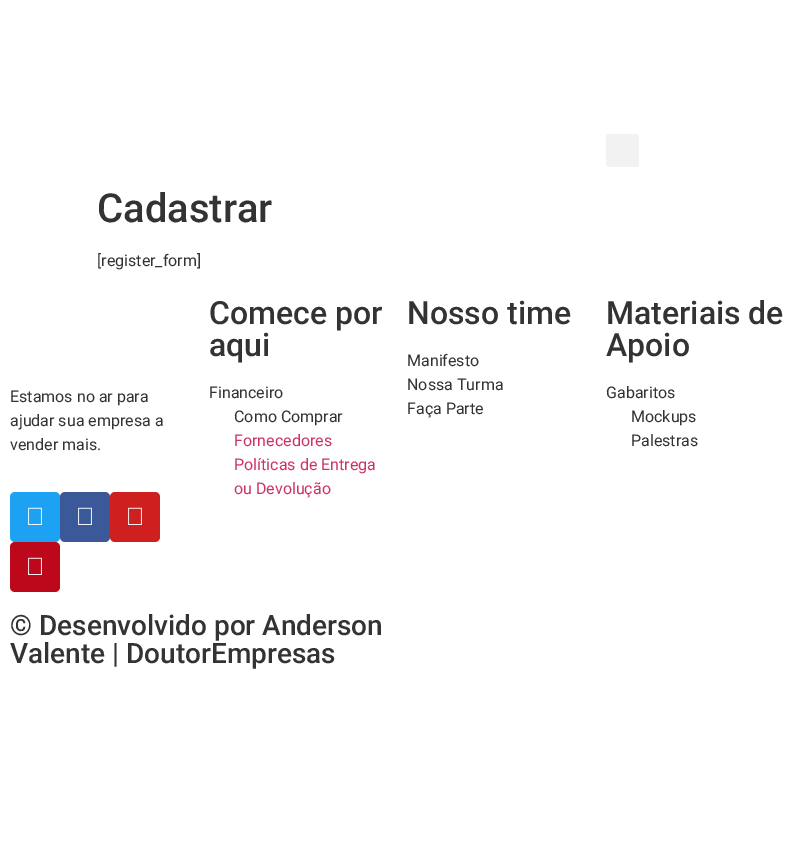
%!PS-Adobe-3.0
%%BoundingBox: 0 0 794 859
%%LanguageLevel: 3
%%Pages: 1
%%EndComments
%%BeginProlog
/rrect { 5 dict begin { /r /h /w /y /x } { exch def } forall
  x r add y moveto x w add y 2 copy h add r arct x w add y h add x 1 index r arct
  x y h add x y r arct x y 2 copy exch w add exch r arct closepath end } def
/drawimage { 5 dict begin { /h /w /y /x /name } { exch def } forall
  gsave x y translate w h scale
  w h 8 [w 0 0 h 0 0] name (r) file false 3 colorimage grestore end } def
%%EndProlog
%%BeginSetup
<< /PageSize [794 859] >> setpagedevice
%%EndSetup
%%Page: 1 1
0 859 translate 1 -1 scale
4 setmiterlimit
1 setgray
0 0 794 859 rectfill
0.949 setgray
606 134 33 33 3 rrect fill
0.114 0.631 0.949 setrgbcolor
10 492 50 50 5 rrect fill
(images/1.raw) 28 507 14 18 drawimage
0.231 0.349 0.596 setrgbcolor
60 492 50 50 5 rrect fill
(images/2.raw) 78 507 14 18 drawimage
0.804 0.125 0.122 setrgbcolor
110 492 50 50 5 rrect fill
(images/3.raw) 128 507 14 18 drawimage
0.741 0.031 0.11 setrgbcolor
10 542 50 50 5 rrect fill
(images/4.raw) 28 557 14 18 drawimage
/Roboto-Medium [40 0 0 -40 0 0] selectfont
0.2 setgray
97 222 moveto (Cadastrar) show
/Roboto-Regular [16 0 0 -16 0 0] selectfont
97 266 moveto ([register_form]) show
10 402 moveto (Estamos no ar para) show
10 426 moveto (ajudar sua empresa a) show
10 450 moveto (vender mais.) show
/Roboto-Medium [32 0 0 -32 0 0] selectfont
209 324 moveto (Comece por) show
209 356 moveto (aqui) show
/Roboto-Regular [16 0 0 -16 0 0] selectfont
209 398 moveto (Financeiro) show
234 422 moveto (Como Comprar) show
0.8 0.2 0.4 setrgbcolor
234 446 moveto (Fornecedores) show
234 470 moveto (Políticas de Entrega) show
234 494 moveto (ou Devolução) show
/Roboto-Medium [32 0 0 -32 0 0] selectfont
0.2 setgray
407 324 moveto (Nosso time) show
/Roboto-Regular [16 0 0 -16 0 0] selectfont
407 366 moveto (Manifesto) show
407 390 moveto (Nossa Turma) show
407 414 moveto (Faça Parte) show
/Roboto-Medium [32 0 0 -32 0 0] selectfont
606 324 moveto (Materiais de) show
606 356 moveto (Apoio) show
/Roboto-Regular [16 0 0 -16 0 0] selectfont
606 398 moveto (Gabaritos) show
631 422 moveto (Mockups) show
631 446 moveto (Palestras) show
/Roboto-Medium [28 0 0 -28 0 0] selectfont
10 635 moveto (© Desenvolvido por Anderson) show
10 663 moveto (Valente | DoutorEmpresas) show
showpage
%%EOF
